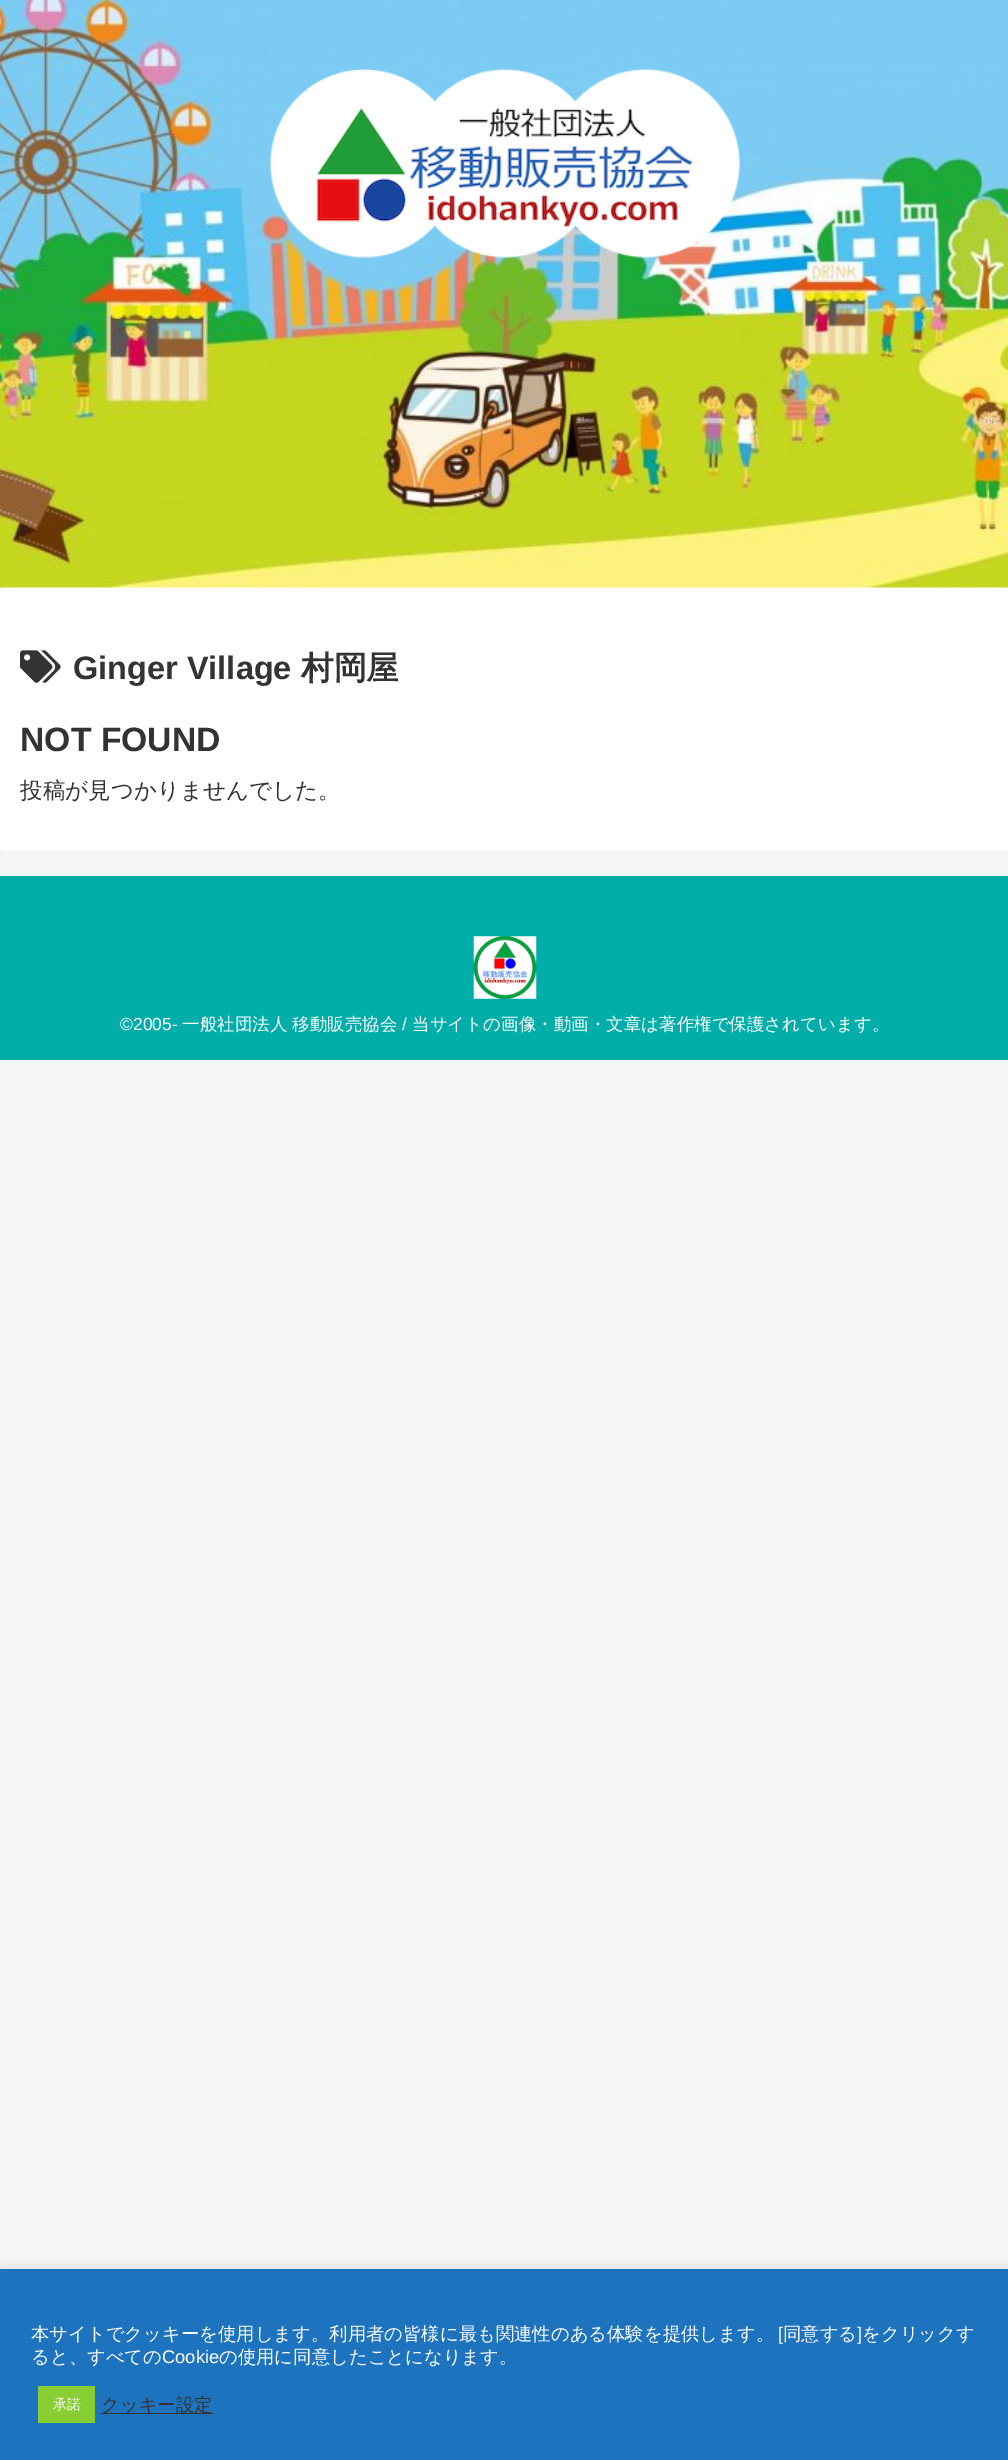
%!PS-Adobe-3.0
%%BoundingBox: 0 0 1008 2460
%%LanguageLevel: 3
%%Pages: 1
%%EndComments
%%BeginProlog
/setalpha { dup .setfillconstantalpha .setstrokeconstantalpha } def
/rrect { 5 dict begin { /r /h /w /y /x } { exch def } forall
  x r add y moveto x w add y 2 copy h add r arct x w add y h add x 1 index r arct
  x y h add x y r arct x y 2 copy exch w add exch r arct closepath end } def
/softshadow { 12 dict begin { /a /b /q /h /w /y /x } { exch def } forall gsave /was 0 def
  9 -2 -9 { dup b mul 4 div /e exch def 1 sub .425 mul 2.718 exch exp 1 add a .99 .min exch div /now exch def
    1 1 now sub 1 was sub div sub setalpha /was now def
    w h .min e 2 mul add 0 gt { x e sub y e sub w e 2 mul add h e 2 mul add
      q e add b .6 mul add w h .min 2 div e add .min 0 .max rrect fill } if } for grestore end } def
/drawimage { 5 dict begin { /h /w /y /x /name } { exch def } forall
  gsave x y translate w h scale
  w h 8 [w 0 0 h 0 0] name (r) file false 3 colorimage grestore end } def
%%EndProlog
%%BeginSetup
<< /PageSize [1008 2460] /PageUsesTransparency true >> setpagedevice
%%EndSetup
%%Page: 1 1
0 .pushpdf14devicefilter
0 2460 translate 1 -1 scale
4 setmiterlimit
0.957 0.961 0.969 setrgbcolor
0 0 1008 2460 rectfill
1 setgray
0 587 1008 1 rectfill
(images/1.raw) 0 0 1008 588 drawimage
(images/2.raw) 269 68 472 190 drawimage
0 588 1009 263 5 rrect fill
(images/3.raw) 20 650 41 33 drawimage
0 0.678 0.663 setrgbcolor
0 876 1008 184 rectfill
(images/4.raw) 473 936 64 63 drawimage
0.675 0.671 0.671 setrgbcolor
0 2268 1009 191 0 6 0.3 softshadow
0.118 0.451 0.745 setrgbcolor
0 2269 1008 191 rectfill
0.533 0.808 0.2 setrgbcolor
38 2386 57 37 rectfill
0.2 setgray
101 2413 112 1 rectfill
/LiberationSans-Bold [32.5 0 0 -32.5 0 0] selectfont
73 679 moveto (Ginger Village) show
/WenQuanYiZenHei-Bold [32.5 0 0 -32.5 0 0] selectfont
301 679 moveto (村岡屋) show
/LiberationSans-Bold [33.75 0 0 -33.75 0 0] selectfont
20 751 moveto (NOT FOUND) show
/WenQuanYiZenHei-Medium [22.5 0 0 -22.5 0 0] selectfont
20 798 moveto (投稿が見つかりませんでした。) show
/LiberationSans-Regular [17.5 0 0 -17.5 0 0] selectfont
1 setgray
120 1030 moveto (©2005-) show
/WenQuanYiZenHei-Medium [17.5 0 0 -17.5 0 0] selectfont
182 1030 moveto (一般社団法人 移動販売協会) show
/LiberationSans-Regular [17.5 0 0 -17.5 0 0] selectfont
402 1030 moveto (/) show
/WenQuanYiZenHei-Medium [17.5 0 0 -17.5 0 0] selectfont
412 1030 moveto (当サイトの画像・動画・文章は著作権で保護されています。) show
/WenQuanYiZenHei-Medium [18.35 0 0 -18.35 0 0] selectfont
31 2340 moveto (本サイトでクッキーを使用します。利用者の皆様に最も関連性のある体験を提供します。) show
/LiberationSans-Regular [18.35 0 0 -18.35 0 0] selectfont
778 2340 moveto ([) show
/WenQuanYiZenHei-Medium [18.35 0 0 -18.35 0 0] selectfont
783 2340 moveto (同意する) show
/LiberationSans-Regular [18.35 0 0 -18.35 0 0] selectfont
857 2340 moveto (]) show
/WenQuanYiZenHei-Medium [18.35 0 0 -18.35 0 0] selectfont
862 2340 moveto (をクリックす) show
31 2363 moveto (ると、すべての) show
/LiberationSans-Regular [18.35 0 0 -18.35 0 0] selectfont
162 2363 moveto (Cookie) show
/WenQuanYiZenHei-Medium [18.35 0 0 -18.35 0 0] selectfont
219 2363 moveto (の使用に同意したことになります。) show
/WenQuanYiZenHei-Medium [14 0 0 -14 0 0] selectfont
53 2409 moveto (承諾) show
/WenQuanYiZenHei-Medium [18.35 0 0 -18.35 0 0] selectfont
0.2 setgray
101 2411 moveto (クッキー設定) show
.poppdf14devicefilter showpage
%%EOF
